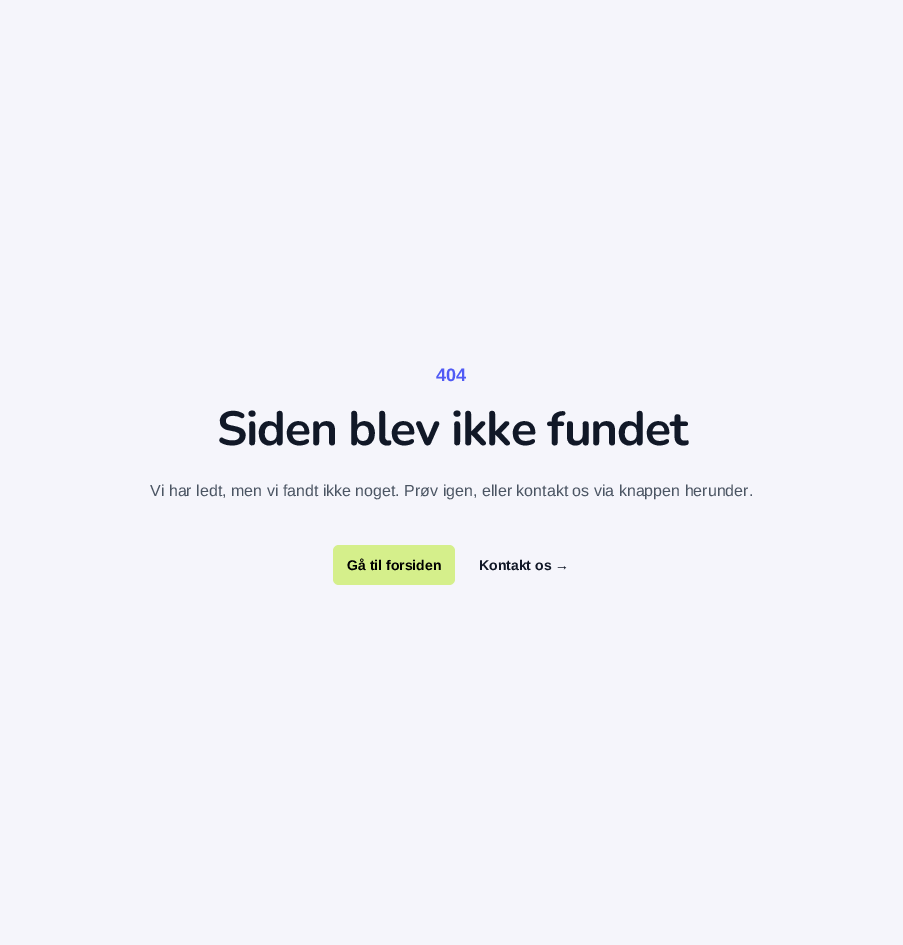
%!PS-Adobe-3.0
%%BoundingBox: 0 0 903 945
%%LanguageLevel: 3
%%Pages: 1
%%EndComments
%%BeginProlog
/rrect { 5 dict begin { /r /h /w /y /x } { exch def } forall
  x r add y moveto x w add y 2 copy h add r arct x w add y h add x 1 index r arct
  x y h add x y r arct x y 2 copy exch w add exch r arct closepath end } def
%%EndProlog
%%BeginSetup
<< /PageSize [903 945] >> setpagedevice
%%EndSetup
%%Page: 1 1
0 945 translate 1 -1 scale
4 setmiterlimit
0.961 0.961 0.984 setrgbcolor
0 0 903 945 rectfill
0.835 0.937 0.545 setrgbcolor
333 545 122 40 6 rrect fill
/LiberationSans-Bold [18 0 0 -18 0 0] selectfont
0.314 0.353 0.961 setrgbcolor
436 381 moveto (404) show
/Nunito-ExtraLight [48 0 0 -48 0 0] selectfont
0.067 0.094 0.153 setrgbcolor
217 445 moveto -1.2 0 (Siden blev ikke fundet) ashow
/LiberationSans-Regular [16 0 0 -16 0 0] selectfont
0.294 0.333 0.388 setrgbcolor
150 496 moveto (Vi har ledt, men vi fandt ikke noget. Prøv igen, eller kontakt os via knappen herunder.) show
/LiberationSans-Bold [14 0 0 -14 0 0] selectfont
0 setgray
347 570 moveto (Gå til forsiden) show
0.067 0.094 0.153 setrgbcolor
479 570 moveto (Kontakt os →) show
showpage
%%EOF
